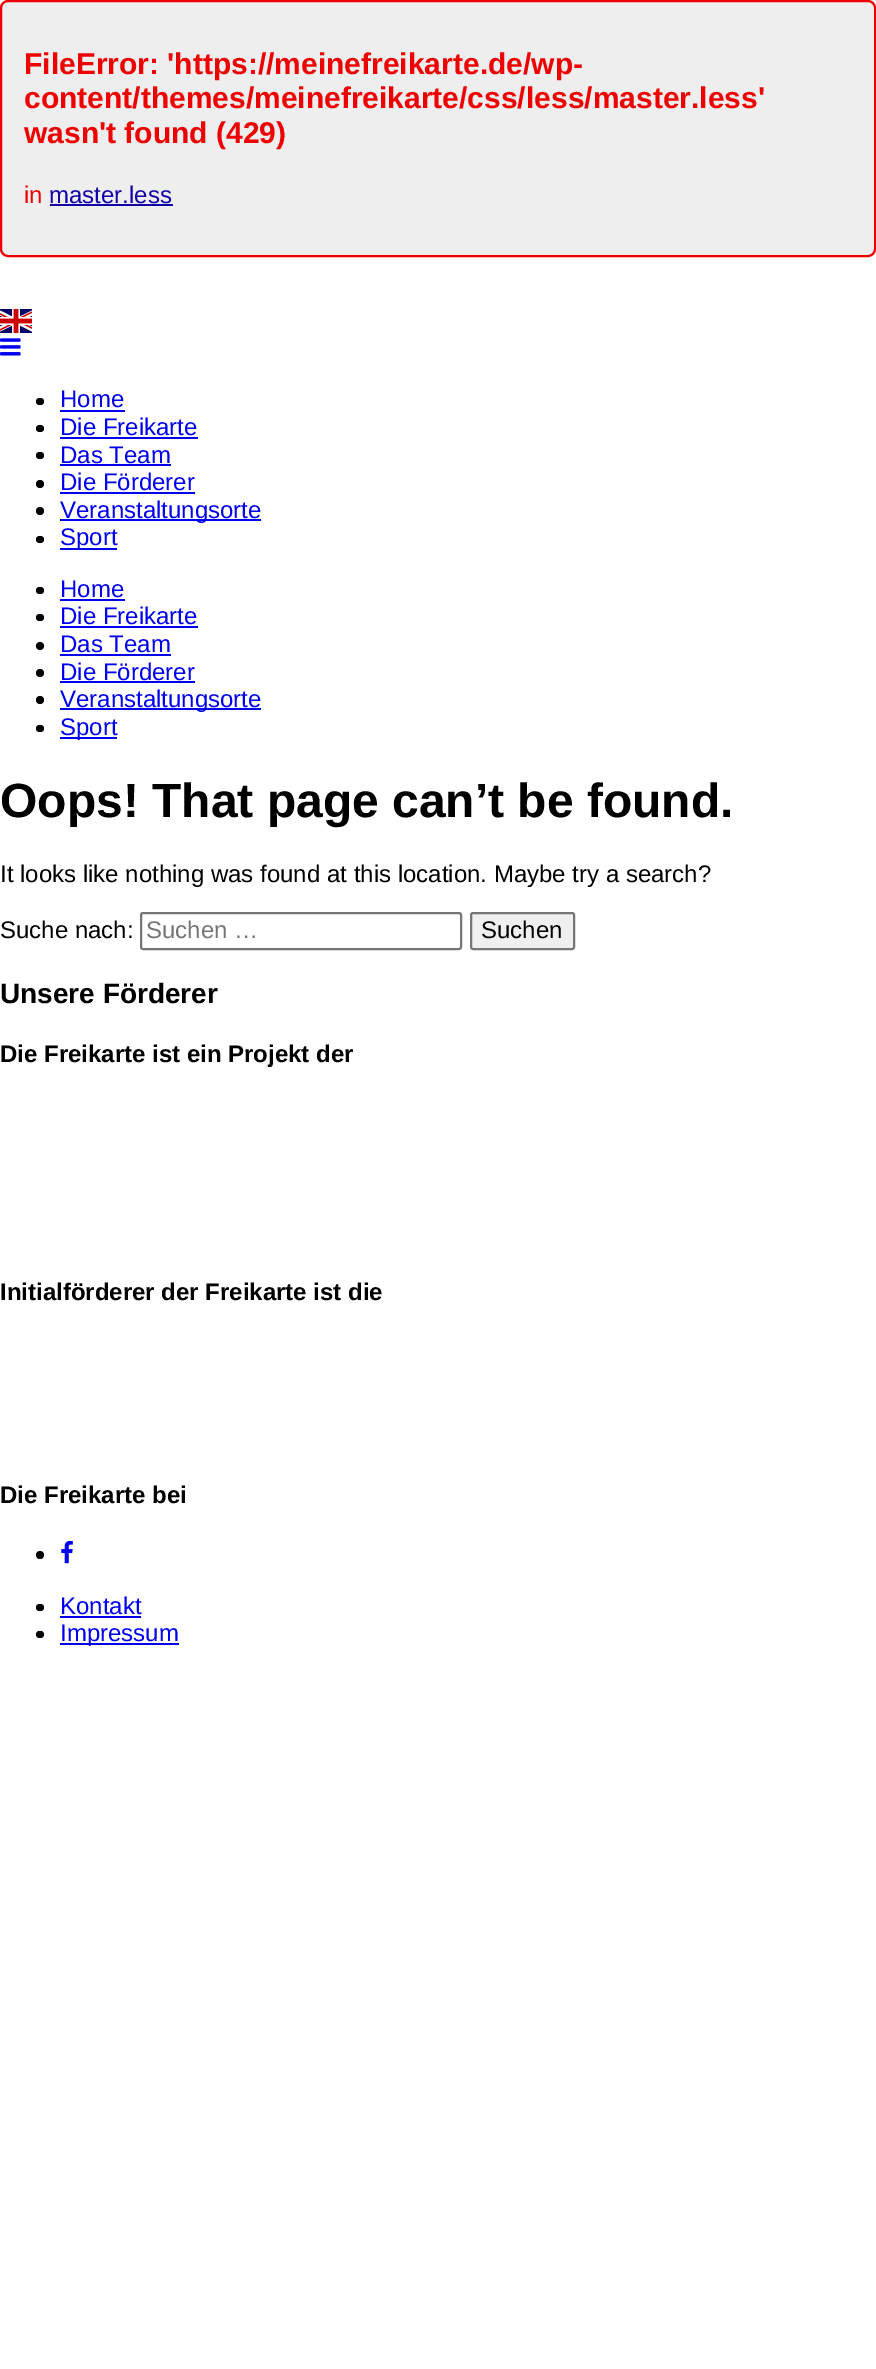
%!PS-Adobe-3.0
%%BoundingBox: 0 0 876 2369
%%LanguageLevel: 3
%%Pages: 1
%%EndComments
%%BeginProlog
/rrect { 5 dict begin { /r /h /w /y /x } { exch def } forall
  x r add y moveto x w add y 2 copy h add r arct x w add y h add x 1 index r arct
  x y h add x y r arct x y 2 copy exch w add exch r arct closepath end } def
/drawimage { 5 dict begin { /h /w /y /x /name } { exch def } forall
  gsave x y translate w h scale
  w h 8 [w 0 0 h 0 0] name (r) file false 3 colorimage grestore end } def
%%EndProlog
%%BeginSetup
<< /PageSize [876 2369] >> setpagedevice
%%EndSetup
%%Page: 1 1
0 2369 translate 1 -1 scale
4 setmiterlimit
1 setgray
0 0 876 2369 rectfill
0.933 setgray
1 1 874 255 7 rrect gsave fill grestore
0.933 0 0 setrgbcolor
2 setlinewidth
stroke
0.067 0 0.667 setrgbcolor
50 204 123 2 rectfill
(images/1.raw) 0 309 32 24 drawimage
(images/2.raw) 0 338 21 18 drawimage
0 setgray
36 398 8 7 3.5 rrect fill
0 0 0.933 setrgbcolor
60 410 65 2 rectfill
0 setgray
36 425 8 7 3.5 rrect fill
0 0 0.933 setrgbcolor
60 437 138 2 rectfill
0 setgray
36 452 8 7 3.5 rrect fill
0 0 0.933 setrgbcolor
60 464 111 2 rectfill
0 setgray
newpath 40 484 4 0 360 arc closepath fill
0 0 0.933 setrgbcolor
60 492 135 2 rectfill
0 setgray
newpath 40 511 4 0 360 arc closepath fill
0 0 0.933 setrgbcolor
60 519 201 2 rectfill
0 setgray
36 536 8 7 3.5 rrect fill
0 0 0.933 setrgbcolor
60 548 57 2 rectfill
0 setgray
36 587 8 7 3.5 rrect fill
0 0 0.933 setrgbcolor
60 599 65 2 rectfill
0 setgray
36 614 8 7 3.5 rrect fill
0 0 0.933 setrgbcolor
60 626 138 2 rectfill
0 setgray
newpath 40 646 4 0 360 arc closepath fill
0 0 0.933 setrgbcolor
60 654 111 2 rectfill
0 setgray
newpath 40 673 4 0 360 arc closepath fill
0 0 0.933 setrgbcolor
60 681 135 2 rectfill
0 setgray
newpath 40 700 4 0 360 arc closepath fill
0 0 0.933 setrgbcolor
60 708 201 2 rectfill
0 setgray
36 725 8 7 3.5 rrect fill
0 0 0.933 setrgbcolor
60 737 57 2 rectfill
0.463 setgray
141 913 320 36 2 rrect stroke
0.937 setgray
471 913 103 36 2 rrect gsave fill grestore
0.463 setgray
stroke
0 setgray
newpath 40 1555 4 0 360 arc closepath fill
(images/3.raw) 61 1540 12 24 drawimage
36 1604 8 7 3.5 rrect fill
0 0 0.933 setrgbcolor
60 1616 81 2 rectfill
0 setgray
36 1631 8 7 3.5 rrect fill
0 0 0.933 setrgbcolor
60 1643 119 2 rectfill
/LiberationSans-Bold [30 0 0 -30 0 0] selectfont
0.933 0 0 setrgbcolor
24 74 moveto (FileError: 'https://meinefreikarte.de/wp-) show
24 108 moveto (content/themes/meinefreikarte/css/less/master.less') show
24 143 moveto (wasn't found \(429\)) show
/LiberationSans-Regular [24 0 0 -24 0 0] selectfont
24 203 moveto (in) show
0.067 0 0.667 setrgbcolor
49 203 moveto (master.less) show
0 0 0.933 setrgbcolor
60 407 moveto (Home) show
60 435 moveto (Die Freikarte) show
60 463 moveto (Das Team) show
60 490 moveto (Die Förderer) show
60 518 moveto (Veranstaltungsorte) show
60 545 moveto (Sport) show
60 597 moveto (Home) show
60 624 moveto (Die Freikarte) show
60 652 moveto (Das Team) show
60 680 moveto (Die Förderer) show
60 707 moveto (Veranstaltungsorte) show
60 735 moveto (Sport) show
/LiberationSans-Bold [48 0 0 -48 0 0] selectfont
0 setgray
0 817 moveto (Oops! That page can’t be found.) show
/LiberationSans-Regular [24 0 0 -24 0 0] selectfont
0 882 moveto (It looks like nothing was found at this location. Maybe try a search?) show
0 938 moveto (Suche nach:) show
0.459 setgray
146 938 moveto (Suchen …) show
0 setgray
481 938 moveto (Suchen) show
/LiberationSans-Bold [28 0 0 -28 0 0] selectfont
0 1003 moveto (Unsere Förderer) show
/LiberationSans-Bold [24 0 0 -24 0 0] selectfont
0 1062 moveto (Die Freikarte ist ein Projekt der) show
0 1300 moveto (Initialförderer der Freikarte ist die) show
0 1503 moveto (Die Freikarte bei) show
/LiberationSans-Regular [24 0 0 -24 0 0] selectfont
0 0 0.933 setrgbcolor
60 1614 moveto (Kontakt) show
60 1641 moveto (Impressum) show
showpage
%%EOF
